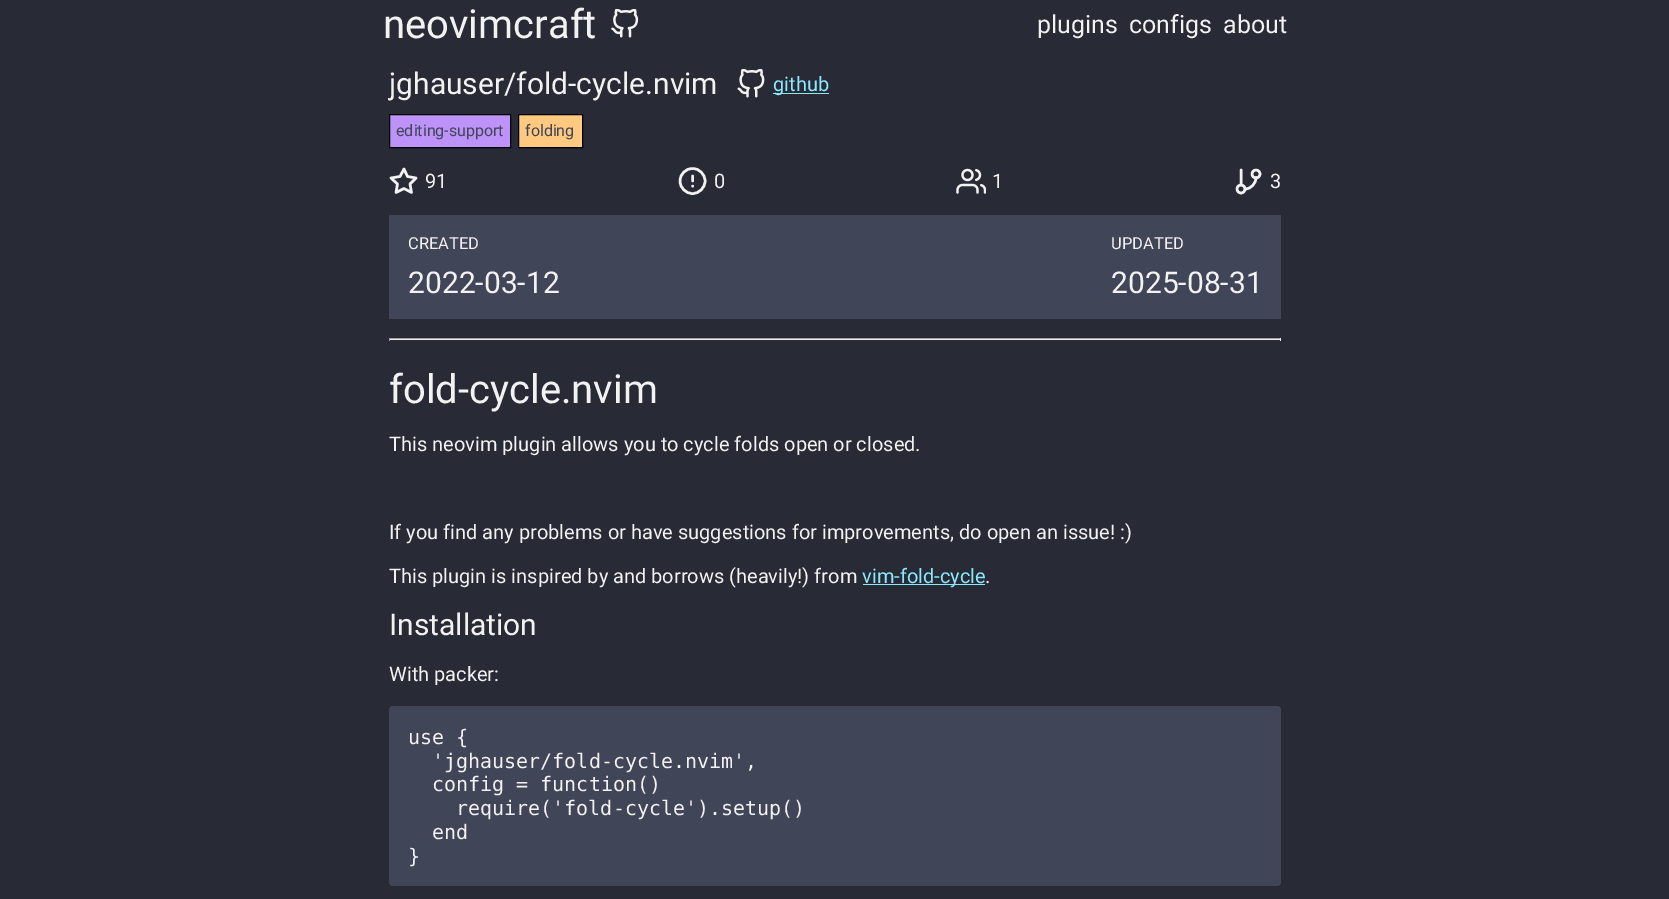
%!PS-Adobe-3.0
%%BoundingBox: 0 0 1669 899
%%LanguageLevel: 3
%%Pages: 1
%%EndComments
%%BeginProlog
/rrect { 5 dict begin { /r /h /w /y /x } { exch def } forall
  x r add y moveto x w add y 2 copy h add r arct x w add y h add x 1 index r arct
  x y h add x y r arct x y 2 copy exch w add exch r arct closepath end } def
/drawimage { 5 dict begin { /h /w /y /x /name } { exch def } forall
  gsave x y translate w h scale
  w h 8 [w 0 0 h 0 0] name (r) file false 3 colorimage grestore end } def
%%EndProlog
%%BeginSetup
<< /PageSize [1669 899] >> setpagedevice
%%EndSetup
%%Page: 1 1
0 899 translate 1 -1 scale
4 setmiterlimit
0.157 0.165 0.212 setrgbcolor
0 0 1669 899 rectfill
(images/1.raw) 611 9 28 29 drawimage
(images/2.raw) 737 69 28 29 drawimage
0.545 0.914 0.992 setrgbcolor
773 93 56 1 rectfill
0.741 0.576 0.976 setrgbcolor
newpath 389.5 114.5 moveto 510.5 114.5 lineto 510.5 147.5 lineto 389.5 147.5 lineto closepath gsave fill grestore
0 setgray
stroke
1 0.792 0.502 setrgbcolor
newpath 518.5 114.5 moveto 582.5 114.5 lineto 582.5 147.5 lineto 518.5 147.5 lineto closepath gsave fill grestore
0 setgray
stroke
0.949 setgray
2.5 setlinewidth
1 setlinecap
1 setlinejoin
newpath 404 169 moveto 407.5 176.5 lineto 416 178 lineto 410 184 lineto 411.5 192.5 lineto 404 188.5 lineto 396 192.5 lineto 397.5 184 lineto 391 178 lineto 400 176.5 lineto closepath stroke
0 setlinecap
0 setlinejoin
newpath 692.5 181 12.5 0 360 arc closepath stroke
1 setlinecap
1 setlinejoin
newpath 692.5 176 moveto 692.5 181 lineto 692.5 186 moveto 692.5 186 lineto stroke
(images/3.raw) 956 168 30 26 drawimage
newpath 1241 170 moveto 1241 185 lineto stroke
0 setlinecap
0 setlinejoin
newpath 1256 174 4 0 360 arc closepath stroke
newpath 1241 189 4 0 360 arc closepath stroke
1 setlinecap
1 setlinejoin
newpath 1256 177.5 moveto 1256 183.5 1251 189 1245 189 curveto stroke
0.255 0.271 0.345 setrgbcolor
389 215 892 104 rectfill
0.624 setgray
389 338 892 1 rectfill
0.933 setgray
1280 338 1 3 rectfill
389 339 892 1 rectfill
0.624 setgray
389 338 1 3 rectfill
0.545 0.914 0.992 setrgbcolor
863 584 122 1 rectfill
0.255 0.271 0.345 setrgbcolor
389 706 892 180 4 rrect fill
/Roboto-Regular [40 0 0 -40 0 0] selectfont
0.949 setgray
383 38 moveto (neovimcraft) show
/Roboto-Regular [25 0 0 -25 0 0] selectfont
1037 33 moveto (plugins) show
1129 33 moveto (configs) show
1223 33 moveto (about) show
/Roboto-Regular [30 0 0 -30 0 0] selectfont
389 94 moveto (jghauser/fold-cycle.nvim) show
/Roboto-Regular [20 0 0 -20 0 0] selectfont
0.545 0.914 0.992 setrgbcolor
773 91 moveto (github) show
/Roboto-Regular [16 0 0 -16 0 0] selectfont
0.255 0.271 0.345 setrgbcolor
396 136 moveto (editing-support) show
525 136 moveto (folding) show
/Roboto-Regular [20 0 0 -20 0 0] selectfont
0.949 setgray
425 188 moveto (91) show
714 188 moveto (0) show
992 188 moveto (1) show
1270 188 moveto (3) show
/Roboto-Regular [16.5 0 0 -16.5 0 0] selectfont
408 249 moveto (CREATED) show
/Roboto-Regular [30 0 0 -30 0 0] selectfont
408 293 moveto (2022-03-12) show
/Roboto-Regular [16.5 0 0 -16.5 0 0] selectfont
1111 249 moveto (UPDATED) show
/Roboto-Regular [30 0 0 -30 0 0] selectfont
1111 293 moveto (2025-08-31) show
/Roboto-Regular [40 0 0 -40 0 0] selectfont
389 403 moveto (fold-cycle.nvim) show
/Roboto-Regular [20 0 0 -20 0 0] selectfont
389 451 moveto (This neovim plugin allows you to cycle folds open or closed.) show
389 539 moveto (If you find any problems or have suggestions for improvements, do open an issue! :\)) show
389 583 moveto (This plugin is inspired by and borrows \(heavily!\) from) show
0.545 0.914 0.992 setrgbcolor
862 583 moveto (vim-fold-cycle) show
0.949 setgray
985 583 moveto (.) show
/Roboto-Regular [30 0 0 -30 0 0] selectfont
389 635 moveto (Installation) show
/Roboto-Regular [20 0 0 -20 0 0] selectfont
389 681 moveto (With packer:) show
/DejaVuSansMono-Regular [20 0 0 -20 0 0] selectfont
408 744 moveto (use {) show
432 768 moveto ('jghauser/fold-cycle.nvim',) show
432 791 moveto (config = function\(\)) show
456 815 moveto (require\('fold-cycle'\).setup\(\)) show
432 839 moveto (end) show
408 863 moveto (}) show
showpage
%%EOF
